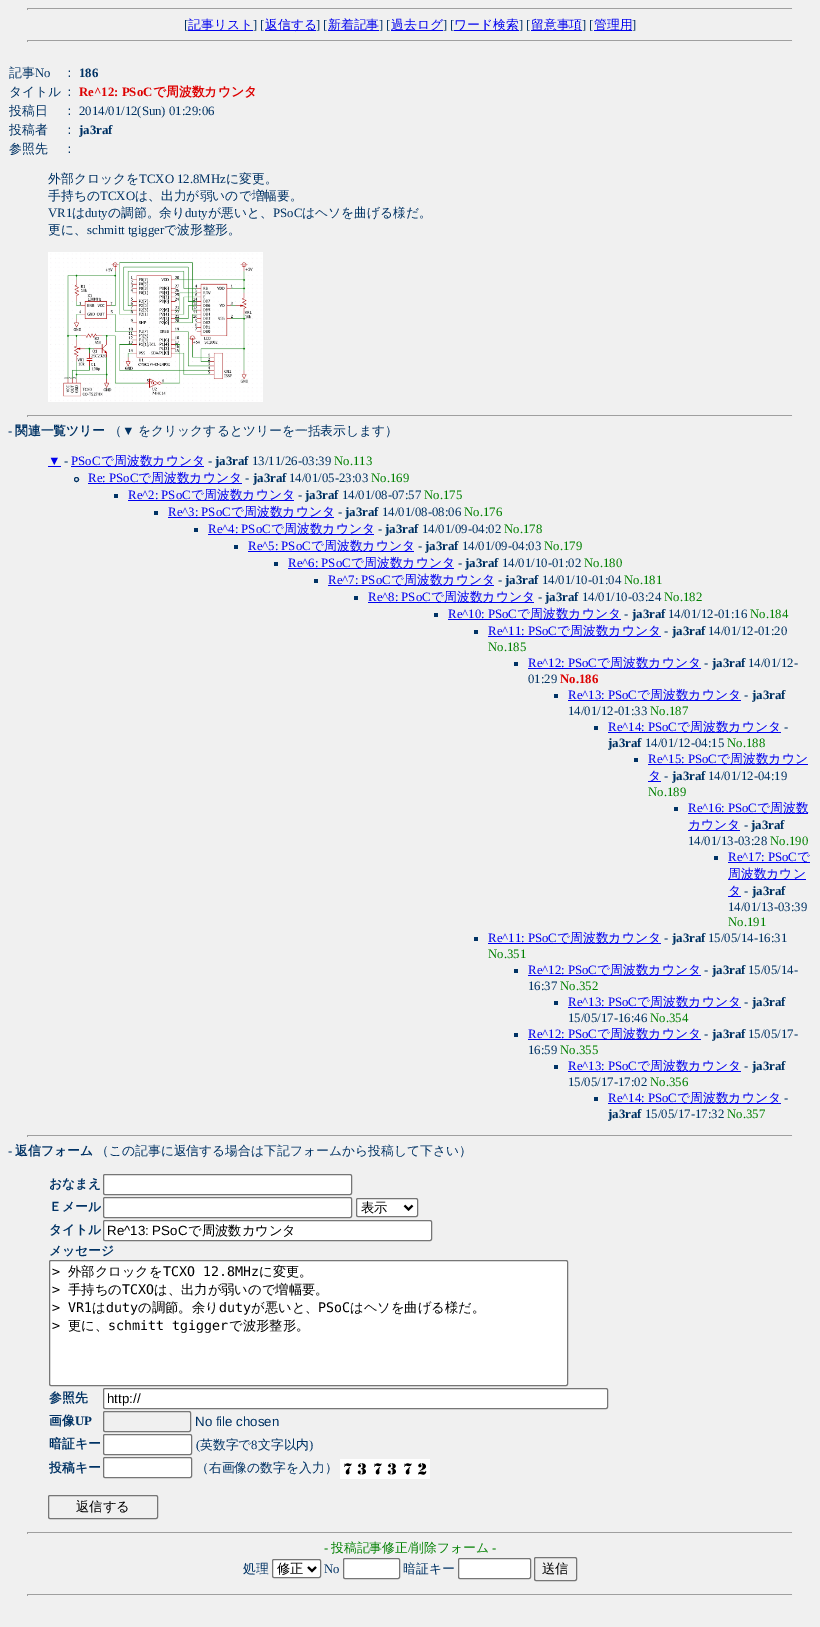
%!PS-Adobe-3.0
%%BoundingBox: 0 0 820 1627
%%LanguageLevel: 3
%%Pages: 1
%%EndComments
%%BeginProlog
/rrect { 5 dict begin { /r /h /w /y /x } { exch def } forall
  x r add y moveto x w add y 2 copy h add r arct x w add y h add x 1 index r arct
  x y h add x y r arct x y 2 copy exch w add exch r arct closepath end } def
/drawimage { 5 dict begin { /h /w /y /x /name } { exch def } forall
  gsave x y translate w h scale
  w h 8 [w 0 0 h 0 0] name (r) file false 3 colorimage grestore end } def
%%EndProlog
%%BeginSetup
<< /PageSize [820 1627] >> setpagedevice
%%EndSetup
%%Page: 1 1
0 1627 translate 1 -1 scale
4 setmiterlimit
0.941 setgray
0 0 820 1627 rectfill
0.624 setgray
27 8 766 1 rectfill
0.933 setgray
792 8 1 2 rectfill
0.624 setgray
27 8 1 2 rectfill
0 0 0.933 setrgbcolor
188 30 65 1 rectfill
265 30 51 1 rectfill
328 30 51 1 rectfill
391 30 52 1 rectfill
531 30 51 1 rectfill
594 30 38 1 rectfill
0.624 setgray
27 40 766 1 rectfill
0.933 setgray
792 40 1 2 rectfill
0.624 setgray
27 40 1 2 rectfill
(images/1.raw) 48 252 215 150 drawimage
27 415 766 1 rectfill
0.933 setgray
792 415 1 2 rectfill
0.624 setgray
27 415 1 2 rectfill
0 0 0.933 setrgbcolor
48 466 13 1 rectfill
71 466 133 1 rectfill
0 0.196 0.392 setrgbcolor
newpath 76.5 479.5 2 0 360 arc closepath stroke
0 0 0.933 setrgbcolor
88 483 154 1 rectfill
0 0.196 0.392 setrgbcolor
114 494 4 4 rectfill
0 0 0.933 setrgbcolor
128 500 166 1 rectfill
0 0.196 0.392 setrgbcolor
154 511 4 4 rectfill
0 0 0.933 setrgbcolor
168 517 166 1 rectfill
0 0.196 0.392 setrgbcolor
194 528 4 4 rectfill
0 0 0.933 setrgbcolor
208 534 166 1 rectfill
0 0.196 0.392 setrgbcolor
234 545 4 4 rectfill
0 0 0.933 setrgbcolor
248 551 166 1 rectfill
0 0.196 0.392 setrgbcolor
274 562 4 4 rectfill
0 0 0.933 setrgbcolor
288 568 166 1 rectfill
0 0.196 0.392 setrgbcolor
314 579 4 4 rectfill
0 0 0.933 setrgbcolor
328 585 166 1 rectfill
0 0.196 0.392 setrgbcolor
354 596 4 4 rectfill
0 0 0.933 setrgbcolor
368 602 166 1 rectfill
0 0.196 0.392 setrgbcolor
434 613 4 4 rectfill
0 0 0.933 setrgbcolor
448 619 173 1 rectfill
0 0.196 0.392 setrgbcolor
474 630 4 4 rectfill
0 0 0.933 setrgbcolor
488 636 173 1 rectfill
0 0.196 0.392 setrgbcolor
514 662 4 4 rectfill
0 0 0.933 setrgbcolor
528 668 173 1 rectfill
0 0.196 0.392 setrgbcolor
554 694 4 4 rectfill
0 0 0.933 setrgbcolor
568 700 173 1 rectfill
0 0.196 0.392 setrgbcolor
594 726 4 4 rectfill
0 0 0.933 setrgbcolor
608 732 173 1 rectfill
0 0.196 0.392 setrgbcolor
634 758 4 4 rectfill
0 0 0.933 setrgbcolor
648 764 160 1 rectfill
648 781 13 1 rectfill
0 0.196 0.392 setrgbcolor
674 807 4 4 rectfill
0 0 0.933 setrgbcolor
688 813 120 1 rectfill
688 830 52 1 rectfill
0 0.196 0.392 setrgbcolor
714 856 4 4 rectfill
0 0 0.933 setrgbcolor
728 862 82 1 rectfill
728 879 78 1 rectfill
728 896 13 1 rectfill
0 0.196 0.392 setrgbcolor
474 937 4 4 rectfill
0 0 0.933 setrgbcolor
488 943 173 1 rectfill
0 0.196 0.392 setrgbcolor
514 969 4 4 rectfill
0 0 0.933 setrgbcolor
528 975 173 1 rectfill
0 0.196 0.392 setrgbcolor
554 1001 4 4 rectfill
0 0 0.933 setrgbcolor
568 1007 173 1 rectfill
0 0.196 0.392 setrgbcolor
514 1033 4 4 rectfill
0 0 0.933 setrgbcolor
528 1039 173 1 rectfill
0 0.196 0.392 setrgbcolor
554 1065 4 4 rectfill
0 0 0.933 setrgbcolor
568 1071 173 1 rectfill
0 0.196 0.392 setrgbcolor
594 1097 4 4 rectfill
0 0 0.933 setrgbcolor
608 1103 173 1 rectfill
0.624 setgray
27 1135 766 1 rectfill
0.933 setgray
792 1135 1 2 rectfill
0.624 setgray
27 1135 1 2 rectfill
1 setgray
103.5 1174.5 248 20 1.5 rrect gsave fill grestore
0.463 setgray
stroke
1 setgray
103.5 1197.5 248 20 1.5 rrect gsave fill grestore
0.463 setgray
stroke
1 setgray
356.5 1198.5 61 18 1.5 rrect gsave fill grestore
0.463 setgray
stroke
0 setgray
2 setlinewidth
newpath 404.5 1205.5 moveto 408.5 1209.5 lineto 412.5 1205.5 lineto stroke
1 setgray
103.5 1220.5 328 20 1.5 rrect gsave fill grestore
0.463 setgray
1 setlinewidth
stroke
1 setgray
49.5 1260.5 518 125 1.5 rrect gsave fill grestore
0.463 setgray
stroke
1 setgray
103.5 1388.5 504 20 1.5 rrect gsave fill grestore
0.463 setgray
stroke
103.5 1411.5 87 20 1.5 rrect stroke
1 setgray
103.5 1434.5 88 20 1.5 rrect gsave fill grestore
0.463 setgray
stroke
1 setgray
103.5 1457.5 88 20 1.5 rrect gsave fill grestore
0.463 setgray
stroke
(images/2.raw) 340 1459 90 20 drawimage
48.5 1495.5 109 23 1.5 rrect stroke
0.624 setgray
27 1532 766 1 rectfill
0.933 setgray
792 1532 1 2 rectfill
0.624 setgray
27 1532 1 2 rectfill
1 setgray
272.5 1559.5 48 18 1.5 rrect gsave fill grestore
0.463 setgray
stroke
0 setgray
2 setlinewidth
newpath 308 1567 moveto 312 1571 lineto 316 1567 lineto stroke
1 setgray
343.5 1558.5 56 20 1.5 rrect gsave fill grestore
0.463 setgray
1 setlinewidth
stroke
1 setgray
458.5 1558.5 72 20 1.5 rrect gsave fill grestore
0.463 setgray
stroke
534.5 1557.5 42 23 1.5 rrect stroke
0.624 setgray
27 1594 766 1 rectfill
0.933 setgray
792 1594 1 2 rectfill
0.624 setgray
27 1594 1 2 rectfill
/LiberationSerif-Regular [12.8 0 0 -12.8 0 0] selectfont
0 0.196 0.392 setrgbcolor
184 29 moveto ([) show
/WenQuanYiZenHei-Medium [12.8 0 0 -12.8 0 0] selectfont
0 0 0.933 setrgbcolor
188 29 moveto (記事リスト) show
/LiberationSerif-Regular [12.8 0 0 -12.8 0 0] selectfont
0 0.196 0.392 setrgbcolor
253 29 moveto (] [) show
/WenQuanYiZenHei-Medium [12.8 0 0 -12.8 0 0] selectfont
0 0 0.933 setrgbcolor
265 29 moveto (返信する) show
/LiberationSerif-Regular [12.8 0 0 -12.8 0 0] selectfont
0 0.196 0.392 setrgbcolor
316 29 moveto (] [) show
/WenQuanYiZenHei-Medium [12.8 0 0 -12.8 0 0] selectfont
0 0 0.933 setrgbcolor
328 29 moveto (新着記事) show
/LiberationSerif-Regular [12.8 0 0 -12.8 0 0] selectfont
0 0.196 0.392 setrgbcolor
379 29 moveto (] [) show
/WenQuanYiZenHei-Medium [12.8 0 0 -12.8 0 0] selectfont
0 0 0.933 setrgbcolor
391 29 moveto (過去ログ) show
/LiberationSerif-Regular [12.8 0 0 -12.8 0 0] selectfont
0 0.196 0.392 setrgbcolor
443 29 moveto (] [) show
0 0 0.933 setrgbcolor
454 30 65 1 rectfill
/WenQuanYiZenHei-Medium [12.8 0 0 -12.8 0 0] selectfont
454 29 moveto (ワード検索) show
/LiberationSerif-Regular [12.8 0 0 -12.8 0 0] selectfont
0 0.196 0.392 setrgbcolor
519 29 moveto (] [) show
/WenQuanYiZenHei-Medium [12.8 0 0 -12.8 0 0] selectfont
0 0 0.933 setrgbcolor
531 29 moveto (留意事項) show
/LiberationSerif-Regular [12.8 0 0 -12.8 0 0] selectfont
0 0.196 0.392 setrgbcolor
582 29 moveto (] [) show
/WenQuanYiZenHei-Medium [12.8 0 0 -12.8 0 0] selectfont
0 0 0.933 setrgbcolor
594 29 moveto (管理用) show
/LiberationSerif-Regular [12.8 0 0 -12.8 0 0] selectfont
0 0.196 0.392 setrgbcolor
632 29 moveto (]) show
/WenQuanYiZenHei-Medium [12.8 0 0 -12.8 0 0] selectfont
9 77 moveto (記事) show
/LiberationSerif-Regular [12.8 0 0 -12.8 0 0] selectfont
35 77 moveto (No) show
/WenQuanYiZenHei-Medium [12.8 0 0 -12.8 0 0] selectfont
63 77 moveto (：) show
/LiberationSerif-Bold [12.8 0 0 -12.8 0 0] selectfont
79 77 moveto (186) show
/WenQuanYiZenHei-Medium [12.8 0 0 -12.8 0 0] selectfont
9 96 moveto (タイトル) show
63 96 moveto (：) show
/LiberationSerif-Bold [12.8 0 0 -12.8 0 0] selectfont
0.867 0 0 setrgbcolor
79 96 moveto (Re^12: PSoC) show
/WenQuanYiZenHei-Bold [12.8 0 0 -12.8 0 0] selectfont
153 96 moveto (で周波数カウンタ) show
/WenQuanYiZenHei-Medium [12.8 0 0 -12.8 0 0] selectfont
0 0.196 0.392 setrgbcolor
9 115 moveto (投稿日) show
63 115 moveto (：) show
/LiberationSerif-Regular [12.8 0 0 -12.8 0 0] selectfont
79 115 moveto (2014/01/12\(Sun\) 01:29:06) show
/WenQuanYiZenHei-Medium [12.8 0 0 -12.8 0 0] selectfont
9 134 moveto (投稿者) show
63 134 moveto (：) show
/LiberationSerif-Bold [12.8 0 0 -12.8 0 0] selectfont
79 134 moveto (ja3raf) show
/WenQuanYiZenHei-Medium [12.8 0 0 -12.8 0 0] selectfont
9 153 moveto (参照先) show
63 153 moveto (：) show
48 183 moveto (外部クロックを) show
/LiberationSerif-Regular [12.8 0 0 -12.8 0 0] selectfont
139 183 moveto (TCXO 12.8MHz) show
/WenQuanYiZenHei-Medium [12.8 0 0 -12.8 0 0] selectfont
226 183 moveto (に変更。) show
48 200 moveto (手持ちの) show
/LiberationSerif-Regular [12.8 0 0 -12.8 0 0] selectfont
100 200 moveto (TCXO) show
/WenQuanYiZenHei-Medium [12.8 0 0 -12.8 0 0] selectfont
135 200 moveto (は、出力が弱いので増幅要。) show
/LiberationSerif-Regular [12.8 0 0 -12.8 0 0] selectfont
48 217 moveto (VR1) show
/WenQuanYiZenHei-Medium [12.8 0 0 -12.8 0 0] selectfont
72 217 moveto (は) show
/LiberationSerif-Regular [12.8 0 0 -12.8 0 0] selectfont
85 217 moveto (duty) show
/WenQuanYiZenHei-Medium [12.8 0 0 -12.8 0 0] selectfont
108 217 moveto (の調節。余り) show
/LiberationSerif-Regular [12.8 0 0 -12.8 0 0] selectfont
185 217 moveto (duty) show
/WenQuanYiZenHei-Medium [12.8 0 0 -12.8 0 0] selectfont
208 217 moveto (が悪いと、) show
/LiberationSerif-Regular [12.8 0 0 -12.8 0 0] selectfont
273 217 moveto (PSoC) show
/WenQuanYiZenHei-Medium [12.8 0 0 -12.8 0 0] selectfont
302 217 moveto (はヘソを曲げる様だ。) show
48 234 moveto (更に、) show
/LiberationSerif-Regular [12.8 0 0 -12.8 0 0] selectfont
87 234 moveto (schmitt tgigger) show
/WenQuanYiZenHei-Medium [12.8 0 0 -12.8 0 0] selectfont
164 234 moveto (で波形整形。) show
/LiberationSerif-Bold [12.8 0 0 -12.8 0 0] selectfont
8 435 moveto (-) show
/WenQuanYiZenHei-Bold [12.8 0 0 -12.8 0 0] selectfont
15 435 moveto (関連一覧ツリー) show
/WenQuanYiZenHei-Medium [12.8 0 0 -12.8 0 0] selectfont
109 435 moveto (（) show
/LiberationSerif-Regular [12.8 0 0 -12.8 0 0] selectfont
122 435 moveto (▼) show
/WenQuanYiZenHei-Medium [12.8 0 0 -12.8 0 0] selectfont
138 435 moveto (をクリックするとツリーを一括表示します）) show
/LiberationSerif-Regular [12.8 0 0 -12.8 0 0] selectfont
0 0 0.933 setrgbcolor
48 465 moveto (▼) show
0 0.196 0.392 setrgbcolor
64 465 moveto (-) show
0 0 0.933 setrgbcolor
71 465 moveto (PSoC) show
/WenQuanYiZenHei-Medium [12.8 0 0 -12.8 0 0] selectfont
101 465 moveto (で周波数カウンタ) show
/LiberationSerif-Regular [12.8 0 0 -12.8 0 0] selectfont
0 0.196 0.392 setrgbcolor
208 465 moveto (-) show
/LiberationSerif-Bold [12.8 0 0 -12.8 0 0] selectfont
215 465 moveto (ja3raf) show
/LiberationSerif-Regular [12.8 0 0 -12.8 0 0] selectfont
252 465 moveto (13/11/26-03:39) show
0 0.502 0 setrgbcolor
334 465 moveto (No.113) show
0 0 0.933 setrgbcolor
88 482 moveto (Re: PSoC) show
/WenQuanYiZenHei-Medium [12.8 0 0 -12.8 0 0] selectfont
138 482 moveto (で周波数カウンタ) show
/LiberationSerif-Regular [12.8 0 0 -12.8 0 0] selectfont
0 0.196 0.392 setrgbcolor
245 482 moveto (-) show
/LiberationSerif-Bold [12.8 0 0 -12.8 0 0] selectfont
253 482 moveto (ja3raf) show
/LiberationSerif-Regular [12.8 0 0 -12.8 0 0] selectfont
289 482 moveto (14/01/05-23:03) show
0 0.502 0 setrgbcolor
371 482 moveto (No.169) show
0 0 0.933 setrgbcolor
128 499 moveto (Re^2: PSoC) show
/WenQuanYiZenHei-Medium [12.8 0 0 -12.8 0 0] selectfont
191 499 moveto (で周波数カウンタ) show
/LiberationSerif-Regular [12.8 0 0 -12.8 0 0] selectfont
0 0.196 0.392 setrgbcolor
298 499 moveto (-) show
/LiberationSerif-Bold [12.8 0 0 -12.8 0 0] selectfont
305 499 moveto (ja3raf) show
/LiberationSerif-Regular [12.8 0 0 -12.8 0 0] selectfont
342 499 moveto (14/01/08-07:57) show
0 0.502 0 setrgbcolor
424 499 moveto (No.175) show
0 0 0.933 setrgbcolor
168 516 moveto (Re^3: PSoC) show
/WenQuanYiZenHei-Medium [12.8 0 0 -12.8 0 0] selectfont
231 516 moveto (で周波数カウンタ) show
/LiberationSerif-Regular [12.8 0 0 -12.8 0 0] selectfont
0 0.196 0.392 setrgbcolor
338 516 moveto (-) show
/LiberationSerif-Bold [12.8 0 0 -12.8 0 0] selectfont
345 516 moveto (ja3raf) show
/LiberationSerif-Regular [12.8 0 0 -12.8 0 0] selectfont
382 516 moveto (14/01/08-08:06) show
0 0.502 0 setrgbcolor
464 516 moveto (No.176) show
0 0 0.933 setrgbcolor
208 533 moveto (Re^4: PSoC) show
/WenQuanYiZenHei-Medium [12.8 0 0 -12.8 0 0] selectfont
271 533 moveto (で周波数カウンタ) show
/LiberationSerif-Regular [12.8 0 0 -12.8 0 0] selectfont
0 0.196 0.392 setrgbcolor
378 533 moveto (-) show
/LiberationSerif-Bold [12.8 0 0 -12.8 0 0] selectfont
385 533 moveto (ja3raf) show
/LiberationSerif-Regular [12.8 0 0 -12.8 0 0] selectfont
422 533 moveto (14/01/09-04:02) show
0 0.502 0 setrgbcolor
504 533 moveto (No.178) show
0 0 0.933 setrgbcolor
248 550 moveto (Re^5: PSoC) show
/WenQuanYiZenHei-Medium [12.8 0 0 -12.8 0 0] selectfont
311 550 moveto (で周波数カウンタ) show
/LiberationSerif-Regular [12.8 0 0 -12.8 0 0] selectfont
0 0.196 0.392 setrgbcolor
418 550 moveto (-) show
/LiberationSerif-Bold [12.8 0 0 -12.8 0 0] selectfont
425 550 moveto (ja3raf) show
/LiberationSerif-Regular [12.8 0 0 -12.8 0 0] selectfont
462 550 moveto (14/01/09-04:03) show
0 0.502 0 setrgbcolor
544 550 moveto (No.179) show
0 0 0.933 setrgbcolor
288 567 moveto (Re^6: PSoC) show
/WenQuanYiZenHei-Medium [12.8 0 0 -12.8 0 0] selectfont
351 567 moveto (で周波数カウンタ) show
/LiberationSerif-Regular [12.8 0 0 -12.8 0 0] selectfont
0 0.196 0.392 setrgbcolor
458 567 moveto (-) show
/LiberationSerif-Bold [12.8 0 0 -12.8 0 0] selectfont
465 567 moveto (ja3raf) show
/LiberationSerif-Regular [12.8 0 0 -12.8 0 0] selectfont
502 567 moveto (14/01/10-01:02) show
0 0.502 0 setrgbcolor
584 567 moveto (No.180) show
0 0 0.933 setrgbcolor
328 584 moveto (Re^7: PSoC) show
/WenQuanYiZenHei-Medium [12.8 0 0 -12.8 0 0] selectfont
391 584 moveto (で周波数カウンタ) show
/LiberationSerif-Regular [12.8 0 0 -12.8 0 0] selectfont
0 0.196 0.392 setrgbcolor
498 584 moveto (-) show
/LiberationSerif-Bold [12.8 0 0 -12.8 0 0] selectfont
505 584 moveto (ja3raf) show
/LiberationSerif-Regular [12.8 0 0 -12.8 0 0] selectfont
542 584 moveto (14/01/10-01:04) show
0 0.502 0 setrgbcolor
624 584 moveto (No.181) show
0 0 0.933 setrgbcolor
368 601 moveto (Re^8: PSoC) show
/WenQuanYiZenHei-Medium [12.8 0 0 -12.8 0 0] selectfont
431 601 moveto (で周波数カウンタ) show
/LiberationSerif-Regular [12.8 0 0 -12.8 0 0] selectfont
0 0.196 0.392 setrgbcolor
538 601 moveto (-) show
/LiberationSerif-Bold [12.8 0 0 -12.8 0 0] selectfont
545 601 moveto (ja3raf) show
/LiberationSerif-Regular [12.8 0 0 -12.8 0 0] selectfont
582 601 moveto (14/01/10-03:24) show
0 0.502 0 setrgbcolor
664 601 moveto (No.182) show
0 0 0.933 setrgbcolor
448 618 moveto (Re^10: PSoC) show
/WenQuanYiZenHei-Medium [12.8 0 0 -12.8 0 0] selectfont
517 618 moveto (で周波数カウンタ) show
/LiberationSerif-Regular [12.8 0 0 -12.8 0 0] selectfont
0 0.196 0.392 setrgbcolor
624 618 moveto (-) show
/LiberationSerif-Bold [12.8 0 0 -12.8 0 0] selectfont
632 618 moveto (ja3raf) show
/LiberationSerif-Regular [12.8 0 0 -12.8 0 0] selectfont
668 618 moveto (14/01/12-01:16) show
0 0.502 0 setrgbcolor
750 618 moveto (No.184) show
0 0 0.933 setrgbcolor
488 635 moveto (Re^11: PSoC) show
/WenQuanYiZenHei-Medium [12.8 0 0 -12.8 0 0] selectfont
557 635 moveto (で周波数カウンタ) show
/LiberationSerif-Regular [12.8 0 0 -12.8 0 0] selectfont
0 0.196 0.392 setrgbcolor
664 635 moveto (-) show
/LiberationSerif-Bold [12.8 0 0 -12.8 0 0] selectfont
672 635 moveto (ja3raf) show
/LiberationSerif-Regular [12.8 0 0 -12.8 0 0] selectfont
708 635 moveto (14/01/12-01:20) show
0 0.502 0 setrgbcolor
488 651 moveto (No.185) show
0 0 0.933 setrgbcolor
528 667 moveto (Re^12: PSoC) show
/WenQuanYiZenHei-Medium [12.8 0 0 -12.8 0 0] selectfont
597 667 moveto (で周波数カウンタ) show
/LiberationSerif-Regular [12.8 0 0 -12.8 0 0] selectfont
0 0.196 0.392 setrgbcolor
704 667 moveto (-) show
/LiberationSerif-Bold [12.8 0 0 -12.8 0 0] selectfont
712 667 moveto (ja3raf) show
/LiberationSerif-Regular [12.8 0 0 -12.8 0 0] selectfont
748 667 moveto (14/01/12-) show
528 683 moveto (01:29) show
/LiberationSerif-Bold [12.8 0 0 -12.8 0 0] selectfont
0.867 0 0 setrgbcolor
560 683 moveto (No.186) show
/LiberationSerif-Regular [12.8 0 0 -12.8 0 0] selectfont
0 0 0.933 setrgbcolor
568 699 moveto (Re^13: PSoC) show
/WenQuanYiZenHei-Medium [12.8 0 0 -12.8 0 0] selectfont
637 699 moveto (で周波数カウンタ) show
/LiberationSerif-Regular [12.8 0 0 -12.8 0 0] selectfont
0 0.196 0.392 setrgbcolor
744 699 moveto (-) show
/LiberationSerif-Bold [12.8 0 0 -12.8 0 0] selectfont
752 699 moveto (ja3raf) show
/LiberationSerif-Regular [12.8 0 0 -12.8 0 0] selectfont
568 715 moveto (14/01/12-01:33) show
0 0.502 0 setrgbcolor
650 715 moveto (No.187) show
0 0 0.933 setrgbcolor
608 731 moveto (Re^14: PSoC) show
/WenQuanYiZenHei-Medium [12.8 0 0 -12.8 0 0] selectfont
677 731 moveto (で周波数カウンタ) show
/LiberationSerif-Regular [12.8 0 0 -12.8 0 0] selectfont
0 0.196 0.392 setrgbcolor
784 731 moveto (-) show
/LiberationSerif-Bold [12.8 0 0 -12.8 0 0] selectfont
608 747 moveto (ja3raf) show
/LiberationSerif-Regular [12.8 0 0 -12.8 0 0] selectfont
645 747 moveto (14/01/12-04:15) show
0 0.502 0 setrgbcolor
727 747 moveto (No.188) show
0 0 0.933 setrgbcolor
648 763 moveto (Re^15: PSoC) show
/WenQuanYiZenHei-Medium [12.8 0 0 -12.8 0 0] selectfont
717 763 moveto (で周波数カウン) show
648 780 moveto (タ) show
/LiberationSerif-Regular [12.8 0 0 -12.8 0 0] selectfont
0 0.196 0.392 setrgbcolor
664 780 moveto (-) show
/LiberationSerif-Bold [12.8 0 0 -12.8 0 0] selectfont
672 780 moveto (ja3raf) show
/LiberationSerif-Regular [12.8 0 0 -12.8 0 0] selectfont
708 780 moveto (14/01/12-04:19) show
0 0.502 0 setrgbcolor
648 796 moveto (No.189) show
0 0 0.933 setrgbcolor
688 812 moveto (Re^16: PSoC) show
/WenQuanYiZenHei-Medium [12.8 0 0 -12.8 0 0] selectfont
757 812 moveto (で周波数) show
688 829 moveto (カウンタ) show
/LiberationSerif-Regular [12.8 0 0 -12.8 0 0] selectfont
0 0.196 0.392 setrgbcolor
744 829 moveto (-) show
/LiberationSerif-Bold [12.8 0 0 -12.8 0 0] selectfont
751 829 moveto (ja3raf) show
/LiberationSerif-Regular [12.8 0 0 -12.8 0 0] selectfont
688 845 moveto (14/01/13-03:28) show
0 0.502 0 setrgbcolor
770 845 moveto (No.190) show
0 0 0.933 setrgbcolor
728 861 moveto (Re^17: PSoC) show
/WenQuanYiZenHei-Medium [12.8 0 0 -12.8 0 0] selectfont
797 861 moveto (で) show
728 878 moveto (周波数カウン) show
728 895 moveto (タ) show
/LiberationSerif-Regular [12.8 0 0 -12.8 0 0] selectfont
0 0.196 0.392 setrgbcolor
744 895 moveto (-) show
/LiberationSerif-Bold [12.8 0 0 -12.8 0 0] selectfont
752 895 moveto (ja3raf) show
/LiberationSerif-Regular [12.8 0 0 -12.8 0 0] selectfont
728 911 moveto (14/01/13-03:39) show
0 0.502 0 setrgbcolor
728 926 moveto (No.191) show
0 0 0.933 setrgbcolor
488 942 moveto (Re^11: PSoC) show
/WenQuanYiZenHei-Medium [12.8 0 0 -12.8 0 0] selectfont
557 942 moveto (で周波数カウンタ) show
/LiberationSerif-Regular [12.8 0 0 -12.8 0 0] selectfont
0 0.196 0.392 setrgbcolor
664 942 moveto (-) show
/LiberationSerif-Bold [12.8 0 0 -12.8 0 0] selectfont
672 942 moveto (ja3raf) show
/LiberationSerif-Regular [12.8 0 0 -12.8 0 0] selectfont
708 942 moveto (15/05/14-16:31) show
0 0.502 0 setrgbcolor
488 958 moveto (No.351) show
0 0 0.933 setrgbcolor
528 974 moveto (Re^12: PSoC) show
/WenQuanYiZenHei-Medium [12.8 0 0 -12.8 0 0] selectfont
597 974 moveto (で周波数カウンタ) show
/LiberationSerif-Regular [12.8 0 0 -12.8 0 0] selectfont
0 0.196 0.392 setrgbcolor
704 974 moveto (-) show
/LiberationSerif-Bold [12.8 0 0 -12.8 0 0] selectfont
712 974 moveto (ja3raf) show
/LiberationSerif-Regular [12.8 0 0 -12.8 0 0] selectfont
748 974 moveto (15/05/14-) show
528 990 moveto (16:37) show
0 0.502 0 setrgbcolor
560 990 moveto (No.352) show
0 0 0.933 setrgbcolor
568 1006 moveto (Re^13: PSoC) show
/WenQuanYiZenHei-Medium [12.8 0 0 -12.8 0 0] selectfont
637 1006 moveto (で周波数カウンタ) show
/LiberationSerif-Regular [12.8 0 0 -12.8 0 0] selectfont
0 0.196 0.392 setrgbcolor
744 1006 moveto (-) show
/LiberationSerif-Bold [12.8 0 0 -12.8 0 0] selectfont
752 1006 moveto (ja3raf) show
/LiberationSerif-Regular [12.8 0 0 -12.8 0 0] selectfont
568 1022 moveto (15/05/17-16:46) show
0 0.502 0 setrgbcolor
650 1022 moveto (No.354) show
0 0 0.933 setrgbcolor
528 1038 moveto (Re^12: PSoC) show
/WenQuanYiZenHei-Medium [12.8 0 0 -12.8 0 0] selectfont
597 1038 moveto (で周波数カウンタ) show
/LiberationSerif-Regular [12.8 0 0 -12.8 0 0] selectfont
0 0.196 0.392 setrgbcolor
704 1038 moveto (-) show
/LiberationSerif-Bold [12.8 0 0 -12.8 0 0] selectfont
712 1038 moveto (ja3raf) show
/LiberationSerif-Regular [12.8 0 0 -12.8 0 0] selectfont
748 1038 moveto (15/05/17-) show
528 1054 moveto (16:59) show
0 0.502 0 setrgbcolor
560 1054 moveto (No.355) show
0 0 0.933 setrgbcolor
568 1070 moveto (Re^13: PSoC) show
/WenQuanYiZenHei-Medium [12.8 0 0 -12.8 0 0] selectfont
637 1070 moveto (で周波数カウンタ) show
/LiberationSerif-Regular [12.8 0 0 -12.8 0 0] selectfont
0 0.196 0.392 setrgbcolor
744 1070 moveto (-) show
/LiberationSerif-Bold [12.8 0 0 -12.8 0 0] selectfont
752 1070 moveto (ja3raf) show
/LiberationSerif-Regular [12.8 0 0 -12.8 0 0] selectfont
568 1086 moveto (15/05/17-17:02) show
0 0.502 0 setrgbcolor
650 1086 moveto (No.356) show
0 0 0.933 setrgbcolor
608 1102 moveto (Re^14: PSoC) show
/WenQuanYiZenHei-Medium [12.8 0 0 -12.8 0 0] selectfont
677 1102 moveto (で周波数カウンタ) show
/LiberationSerif-Regular [12.8 0 0 -12.8 0 0] selectfont
0 0.196 0.392 setrgbcolor
784 1102 moveto (-) show
/LiberationSerif-Bold [12.8 0 0 -12.8 0 0] selectfont
608 1118 moveto (ja3raf) show
/LiberationSerif-Regular [12.8 0 0 -12.8 0 0] selectfont
645 1118 moveto (15/05/17-17:32) show
0 0.502 0 setrgbcolor
727 1118 moveto (No.357) show
/LiberationSerif-Bold [12.8 0 0 -12.8 0 0] selectfont
0 0.196 0.392 setrgbcolor
8 1155 moveto (-) show
/WenQuanYiZenHei-Bold [12.8 0 0 -12.8 0 0] selectfont
15 1155 moveto (返信フォーム) show
/WenQuanYiZenHei-Medium [12.8 0 0 -12.8 0 0] selectfont
96 1155 moveto (（この記事に返信する場合は下記フォームから投稿して下さい）) show
/WenQuanYiZenHei-Bold [12.8 0 0 -12.8 0 0] selectfont
49 1188 moveto (おなまえ) show
49 1211 moveto (Ｅメール) show
/WenQuanYiZenHei-Medium [13.3 0 0 -13.3 0 0] selectfont
0 setgray
361 1212 moveto (表示) show
/WenQuanYiZenHei-Bold [12.8 0 0 -12.8 0 0] selectfont
0 0.196 0.392 setrgbcolor
49 1234 moveto (タイトル) show
/LiberationSans-Regular [13.3 0 0 -13.3 0 0] selectfont
0 setgray
107 1235 moveto (Re^13: PSoC) show
/WenQuanYiZenHei-Medium [13.3 0 0 -13.3 0 0] selectfont
188 1235 moveto (で周波数カウンタ) show
/WenQuanYiZenHei-Bold [12.8 0 0 -12.8 0 0] selectfont
0 0.196 0.392 setrgbcolor
49 1255 moveto (メッセージ) show
/DejaVuSansMono-Regular [13.3 0 0 -13.3 0 0] selectfont
0 setgray
52 1276 moveto (>) show
/WenQuanYiZenHei-Medium [13.3 0 0 -13.3 0 0] selectfont
68 1276 moveto (外部クロックを) show
/DejaVuSansMono-Regular [13.3 0 0 -13.3 0 0] selectfont
163 1276 moveto (TCXO 12.8MHz) show
/WenQuanYiZenHei-Medium [13.3 0 0 -13.3 0 0] selectfont
259 1276 moveto (に変更。) show
/DejaVuSansMono-Regular [13.3 0 0 -13.3 0 0] selectfont
52 1294 moveto (>) show
/WenQuanYiZenHei-Medium [13.3 0 0 -13.3 0 0] selectfont
68 1294 moveto (手持ちの) show
/DejaVuSansMono-Regular [13.3 0 0 -13.3 0 0] selectfont
122 1294 moveto (TCXO) show
/WenQuanYiZenHei-Medium [13.3 0 0 -13.3 0 0] selectfont
154 1294 moveto (は、出力が弱いので増幅要。) show
/DejaVuSansMono-Regular [13.3 0 0 -13.3 0 0] selectfont
52 1312 moveto (> VR1) show
/WenQuanYiZenHei-Medium [13.3 0 0 -13.3 0 0] selectfont
92 1312 moveto (は) show
/DejaVuSansMono-Regular [13.3 0 0 -13.3 0 0] selectfont
106 1312 moveto (duty) show
/WenQuanYiZenHei-Medium [13.3 0 0 -13.3 0 0] selectfont
138 1312 moveto (の調節。余り) show
/DejaVuSansMono-Regular [13.3 0 0 -13.3 0 0] selectfont
219 1312 moveto (duty) show
/WenQuanYiZenHei-Medium [13.3 0 0 -13.3 0 0] selectfont
251 1312 moveto (が悪いと、) show
/DejaVuSansMono-Regular [13.3 0 0 -13.3 0 0] selectfont
318 1312 moveto (PSoC) show
/WenQuanYiZenHei-Medium [13.3 0 0 -13.3 0 0] selectfont
350 1312 moveto (はヘソを曲げる様だ。) show
/DejaVuSansMono-Regular [13.3 0 0 -13.3 0 0] selectfont
52 1330 moveto (>) show
/WenQuanYiZenHei-Medium [13.3 0 0 -13.3 0 0] selectfont
68 1330 moveto (更に、) show
/DejaVuSansMono-Regular [13.3 0 0 -13.3 0 0] selectfont
108 1330 moveto (schmitt tgigger) show
/WenQuanYiZenHei-Medium [13.3 0 0 -13.3 0 0] selectfont
229 1330 moveto (で波形整形。) show
/WenQuanYiZenHei-Bold [12.8 0 0 -12.8 0 0] selectfont
0 0.196 0.392 setrgbcolor
49 1402 moveto (参照先) show
/LiberationSans-Regular [13.3 0 0 -13.3 0 0] selectfont
0 setgray
107 1403 moveto (http://) show
/WenQuanYiZenHei-Bold [12.8 0 0 -12.8 0 0] selectfont
0 0.196 0.392 setrgbcolor
49 1425 moveto (画像) show
/LiberationSerif-Bold [12.8 0 0 -12.8 0 0] selectfont
75 1425 moveto (UP) show
/LiberationSans-Regular [13.3 0 0 -13.3 0 0] selectfont
195 1426 moveto (No file chosen) show
/WenQuanYiZenHei-Bold [12.8 0 0 -12.8 0 0] selectfont
49 1448 moveto (暗証キー) show
/LiberationSerif-Regular [12.8 0 0 -12.8 0 0] selectfont
196 1449 moveto (\() show
/WenQuanYiZenHei-Medium [12.8 0 0 -12.8 0 0] selectfont
200 1449 moveto (英数字で) show
/LiberationSerif-Regular [12.8 0 0 -12.8 0 0] selectfont
251 1449 moveto (8) show
/WenQuanYiZenHei-Medium [12.8 0 0 -12.8 0 0] selectfont
258 1449 moveto (文字以内) show
/LiberationSerif-Regular [12.8 0 0 -12.8 0 0] selectfont
309 1449 moveto (\)) show
/WenQuanYiZenHei-Bold [12.8 0 0 -12.8 0 0] selectfont
49 1472 moveto (投稿キー) show
/WenQuanYiZenHei-Medium [12.8 0 0 -12.8 0 0] selectfont
196 1472 moveto (（右画像の数字を入力）) show
/WenQuanYiZenHei-Medium [13.3 0 0 -13.3 0 0] selectfont
0 setgray
76 1511 moveto (返信する) show
/LiberationSerif-Regular [12.8 0 0 -12.8 0 0] selectfont
0 0.502 0 setrgbcolor
324 1552 moveto (-) show
/WenQuanYiZenHei-Medium [12.8 0 0 -12.8 0 0] selectfont
331 1552 moveto (投稿記事修正) show
/LiberationSerif-Regular [12.8 0 0 -12.8 0 0] selectfont
408 1552 moveto (/) show
/WenQuanYiZenHei-Medium [12.8 0 0 -12.8 0 0] selectfont
411 1552 moveto (削除フォーム) show
/LiberationSerif-Regular [12.8 0 0 -12.8 0 0] selectfont
492 1552 moveto (-) show
/WenQuanYiZenHei-Medium [12.8 0 0 -12.8 0 0] selectfont
0 0.196 0.392 setrgbcolor
243 1573 moveto (処理) show
/WenQuanYiZenHei-Medium [13.3 0 0 -13.3 0 0] selectfont
0 setgray
277 1573 moveto (修正) show
/LiberationSerif-Regular [12.8 0 0 -12.8 0 0] selectfont
0 0.196 0.392 setrgbcolor
324 1573 moveto (No) show
/WenQuanYiZenHei-Medium [12.8 0 0 -12.8 0 0] selectfont
403 1573 moveto (暗証キー) show
/WenQuanYiZenHei-Medium [13.3 0 0 -13.3 0 0] selectfont
0 setgray
542 1573 moveto (送信) show
showpage
%%EOF
